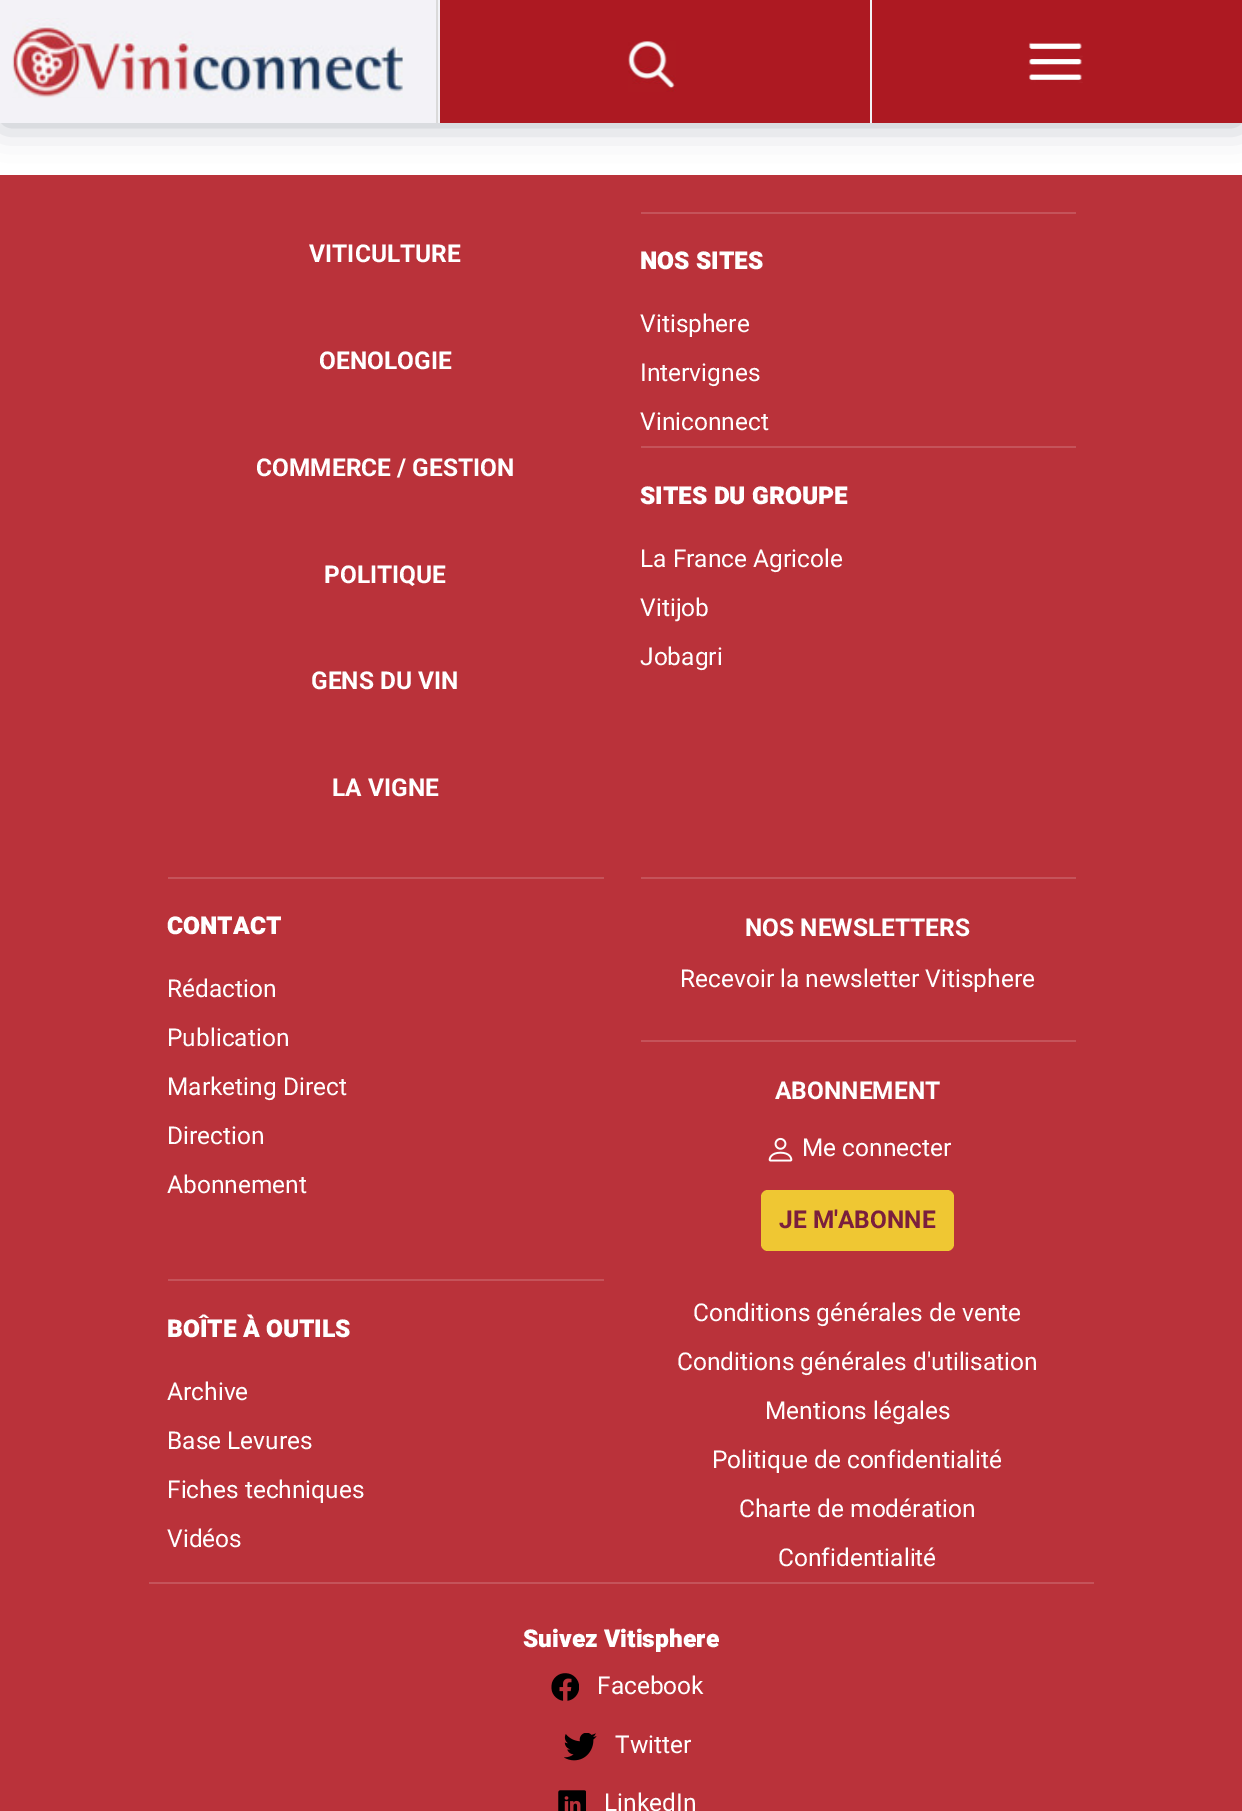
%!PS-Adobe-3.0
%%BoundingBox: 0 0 1242 1811
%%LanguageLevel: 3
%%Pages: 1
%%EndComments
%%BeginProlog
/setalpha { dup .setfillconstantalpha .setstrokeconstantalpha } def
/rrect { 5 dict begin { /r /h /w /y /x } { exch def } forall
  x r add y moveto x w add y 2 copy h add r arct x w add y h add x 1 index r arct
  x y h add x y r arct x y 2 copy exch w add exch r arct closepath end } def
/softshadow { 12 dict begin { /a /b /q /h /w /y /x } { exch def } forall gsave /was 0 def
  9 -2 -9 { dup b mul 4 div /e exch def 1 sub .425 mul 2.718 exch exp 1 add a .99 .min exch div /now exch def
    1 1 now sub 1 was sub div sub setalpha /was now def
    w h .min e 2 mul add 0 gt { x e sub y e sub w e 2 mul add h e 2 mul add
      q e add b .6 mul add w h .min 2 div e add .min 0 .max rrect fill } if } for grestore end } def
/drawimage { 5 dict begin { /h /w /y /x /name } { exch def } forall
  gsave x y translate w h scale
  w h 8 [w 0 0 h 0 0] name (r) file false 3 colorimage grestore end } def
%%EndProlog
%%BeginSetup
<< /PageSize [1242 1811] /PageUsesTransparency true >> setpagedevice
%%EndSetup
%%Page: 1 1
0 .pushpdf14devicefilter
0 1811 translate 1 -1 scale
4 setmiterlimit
0.729 0.196 0.227 setrgbcolor
0 0 1242 1811 rectfill
1 setgray
0 123 1242 52 rectfill
0.706 0.718 0.749 setrgbcolor
2 5 1239 119 0 17.5 1 softshadow
0.953 0.949 0.969 setrgbcolor
0 0 436 123 rectfill
0.855 setgray
436 0 2 123 rectfill
(images/1.raw) 12 18 391 80 drawimage
0.678 0.098 0.133 setrgbcolor
440 0 430 123 rectfill
0.949 0.953 0.969 setrgbcolor
870 0 2 123 rectfill
438 0 2 123 rectfill
(images/2.raw) 628 41 48 51 drawimage
0.678 0.098 0.133 setrgbcolor
872 0 370 123 rectfill
(images/3.raw) 1028 42 55 41 drawimage
0.773 0.325 0.353 setrgbcolor
641 212 435 2 rectfill
641 446 435 2 rectfill
168 877 436 2 rectfill
168 1279 436 2 rectfill
641 877 435 2 rectfill
641 1040 435 2 rectfill
(images/4.raw) 768 1137 25 25 drawimage
0.937 0.78 0.2 setrgbcolor
761 1190 193 61 7 rrect fill
0.773 0.325 0.353 setrgbcolor
149 1582 945 2 rectfill
(images/5.raw) 551 1673 28 28 drawimage
(images/6.raw) 564 1733 33 28 drawimage
(images/7.raw) 558 1790 28 21 drawimage
/Roboto-Bold [24.5 0 0 -24.5 0 0] selectfont
1 setgray
309 262 moveto (VITICULTURE) show
319 369 moveto (OENOLOGIE) show
256 476 moveto (COMMERCE / GESTION) show
324 583 moveto (POLITIQUE) show
311 689 moveto (GENS DU VIN) show
332 796 moveto (LA VIGNE) show
/Heebo-Black [24.5 0 0 -24.5 0 0] selectfont
640 269 moveto (NOS SITES) show
/Roboto-Regular [24.5 0 0 -24.5 0 0] selectfont
640 332 moveto (Vitisphere) show
640 381 moveto (Intervignes) show
640 430 moveto (Viniconnect) show
/Heebo-Black [24.5 0 0 -24.5 0 0] selectfont
640 504 moveto (SITES DU GROUPE) show
/Roboto-Regular [24.5 0 0 -24.5 0 0] selectfont
640 567 moveto (La France Agricole) show
640 616 moveto (Vitijob) show
640 665 moveto (Jobagri) show
/Heebo-Black [24.5 0 0 -24.5 0 0] selectfont
167 934 moveto (CONTACT) show
/Roboto-Regular [24.5 0 0 -24.5 0 0] selectfont
167 997 moveto (Rédaction) show
167 1046 moveto (Publication) show
167 1095 moveto (Marketing Direct) show
167 1144 moveto (Direction) show
167 1193 moveto (Abonnement) show
/Heebo-Black [24.5 0 0 -24.5 0 0] selectfont
167 1337 moveto (BOÎTE À OUTILS) show
/Roboto-Regular [24.5 0 0 -24.5 0 0] selectfont
167 1400 moveto (Archive) show
167 1449 moveto (Base Levures) show
167 1498 moveto (Fiches techniques) show
167 1547 moveto (Vidéos) show
/Roboto-Bold [24.5 0 0 -24.5 0 0] selectfont
745 936 moveto (NOS NEWSLETTERS) show
/Roboto-Regular [24.5 0 0 -24.5 0 0] selectfont
680 987 moveto (Recevoir la newsletter Vitisphere) show
/Roboto-Bold [24.5 0 0 -24.5 0 0] selectfont
775 1099 moveto (ABONNEMENT) show
/Roboto-Regular [24.5 0 0 -24.5 0 0] selectfont
802 1156 moveto (Me connecter) show
/Roboto-Bold [24.5 0 0 -24.5 0 0] selectfont
0.478 0.122 0.239 setrgbcolor
779 1228 moveto (JE M'ABONNE) show
/Roboto-Regular [24.5 0 0 -24.5 0 0] selectfont
1 setgray
693 1321 moveto (Conditions générales de vente) show
677 1370 moveto (Conditions générales d'utilisation) show
765 1419 moveto (Mentions légales) show
712 1468 moveto (Politique de confidentialité) show
739 1517 moveto (Charte de modération) show
778 1566 moveto (Confidentialité) show
/Heebo-Black [24.5 0 0 -24.5 0 0] selectfont
523 1647 moveto (Suivez Vitisphere) show
/Roboto-Regular [24.5 0 0 -24.5 0 0] selectfont
597 1694 moveto (Facebook) show
615 1753 moveto (Twitter) show
604 1811 moveto (LinkedIn) show
.poppdf14devicefilter showpage
%%EOF
